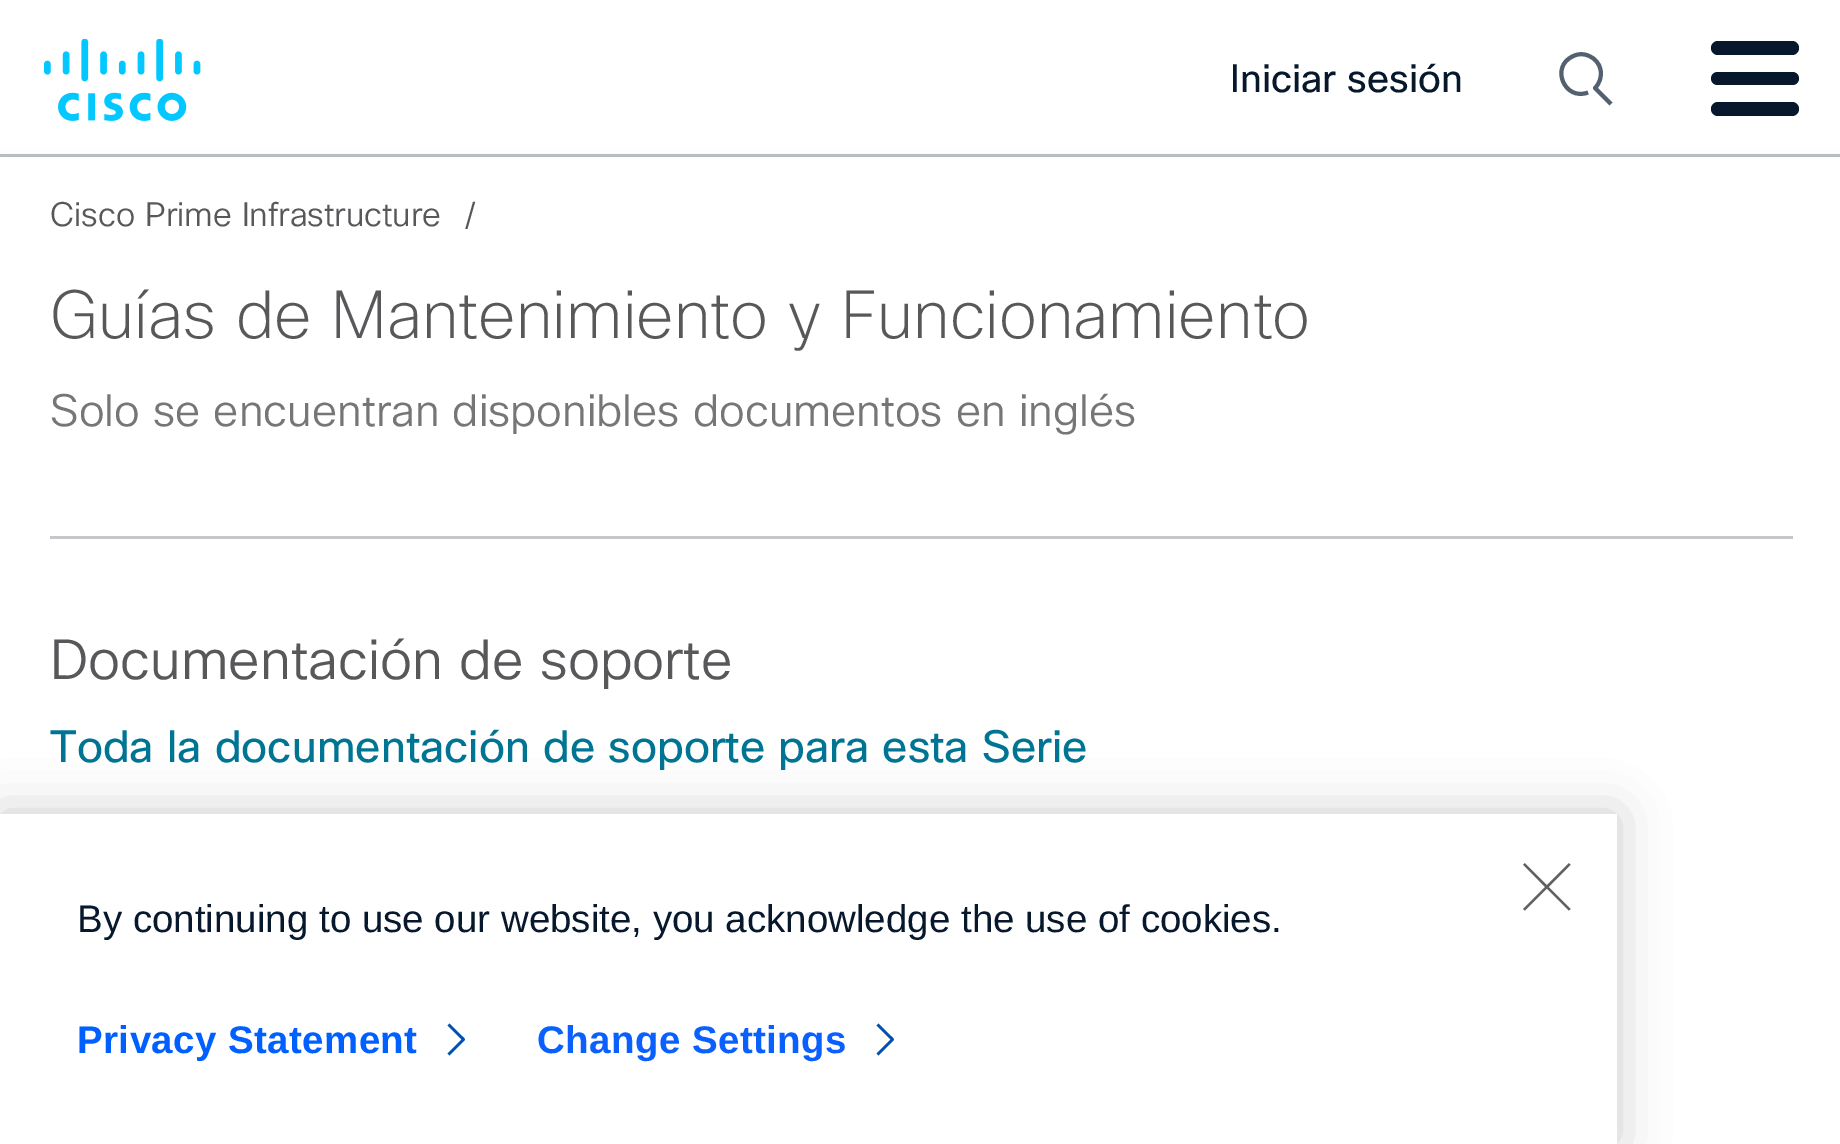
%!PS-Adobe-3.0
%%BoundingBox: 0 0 1840 1144
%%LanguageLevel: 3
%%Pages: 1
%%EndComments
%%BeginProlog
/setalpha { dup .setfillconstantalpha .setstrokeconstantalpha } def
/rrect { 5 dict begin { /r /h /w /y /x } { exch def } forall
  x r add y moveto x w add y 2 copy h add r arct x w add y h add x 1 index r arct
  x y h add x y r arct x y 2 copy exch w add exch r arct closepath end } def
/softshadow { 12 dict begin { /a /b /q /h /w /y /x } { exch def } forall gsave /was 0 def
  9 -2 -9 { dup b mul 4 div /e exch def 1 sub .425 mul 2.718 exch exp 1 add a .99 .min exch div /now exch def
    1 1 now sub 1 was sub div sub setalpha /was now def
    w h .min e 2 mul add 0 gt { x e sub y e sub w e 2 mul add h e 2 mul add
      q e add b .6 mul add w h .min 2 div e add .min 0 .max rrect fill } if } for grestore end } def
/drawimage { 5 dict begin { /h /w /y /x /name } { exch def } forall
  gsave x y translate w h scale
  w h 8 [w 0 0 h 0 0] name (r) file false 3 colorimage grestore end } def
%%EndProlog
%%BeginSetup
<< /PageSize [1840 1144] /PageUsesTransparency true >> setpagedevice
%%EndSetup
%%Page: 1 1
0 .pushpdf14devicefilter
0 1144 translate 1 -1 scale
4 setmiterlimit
1 setgray
0 0 1840 1144 rectfill
0.725 0.757 0.788 setrgbcolor
0 154 1840 3 rectfill
(images/1.raw) 44 39 157 82 drawimage
0.325 0.376 0.439 setrgbcolor
4 setlinewidth
1 setlinejoin
newpath 1588 92.5 moveto 1564.5 101.5 1549.5 66 1573.5 56 curveto 1578.5 53.5 1584 53.5 1589 56 curveto 1595 58.5 1599.5 63.5 1600.5 70 curveto 1602 76.5 1599.5 83.5 1595 88 curveto 1611 104 lineto stroke
0.027 0.094 0.176 setrgbcolor
1711 41 88 14 7 rrect fill
1711 72 88 13 6.5 rrect fill
1711 102 88 14 7 rrect fill
0 setgray
0 162 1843 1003 0 7 0.12 softshadow
1 setgray
0 157 1840 987 rectfill
0.776 0.78 0.792 setrgbcolor
50 536 1743 3 rectfill
0 setgray
0 814 1617 330 0 25 0.2 softshadow
1 setgray
0 814 1617 330 rectfill
(images/2.raw) 1523 863 48 48 drawimage
0 0.318 0.686 setrgbcolor
newpath 449.5 1055.5 moveto 447.5 1053.5 lineto 461.5 1039.5 lineto 447.5 1025.5 lineto 449.5 1023.5 lineto 462 1036 lineto 462.5 1036.5 466 1039 464.5 1040.5 curveto closepath fill
newpath 878.5 1055.5 moveto 876.5 1053.5 lineto 890.5 1039.5 lineto 876.5 1025.5 lineto 878.5 1023.5 lineto 891 1036 lineto 891.5 1036.5 895 1039 893.5 1040.5 curveto closepath fill
/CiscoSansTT-Regular [38.5 0 0 -38.5 0 0] selectfont
0.027 0.094 0.176 setrgbcolor
1230 92 moveto (Iniciar sesión) show
/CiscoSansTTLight-Light [33 0 0 -33 0 0] selectfont
0.345 0.345 0.357 setrgbcolor
50 226 moveto (Cisco Prime Infrastructure) show
464 226 moveto (/) show
/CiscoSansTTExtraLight-ExtraLight [66 0 0 -66 0 0] selectfont
50 338 moveto (Guías de Mantenimiento y Funcionamiento) show
/CiscoSansTTLight-Light [44 0 0 -44 0 0] selectfont
0.463 setgray
50 426 moveto (Solo se encuentran disponibles documentos en inglés) show
/CiscoSansTTLight-Light [55 0 0 -55 0 0] selectfont
0.345 0.345 0.357 setrgbcolor
50 679 moveto (Documentación de soporte) show
/CiscoSansTT-Regular [44 0 0 -44 0 0] selectfont
0 0.455 0.576 setrgbcolor
50 762 moveto (Toda la documentación de soporte para esta Serie) show
/LiberationSans-Regular [38.5 0 0 -38.5 0 0] selectfont
0.027 0.094 0.176 setrgbcolor
77 932 moveto (By continuing to use our website, you acknowledge the use of cookies.) show
/LiberationSans-Bold [38.5 0 0 -38.5 0 0] selectfont
0 0.376 1 setrgbcolor
77 1053 moveto 0.4 0 (Privacy Statement) ashow
0.039 0.376 1 setrgbcolor
537 1053 moveto 0.4 0 (Change Settings) ashow
.poppdf14devicefilter showpage
%%EOF
